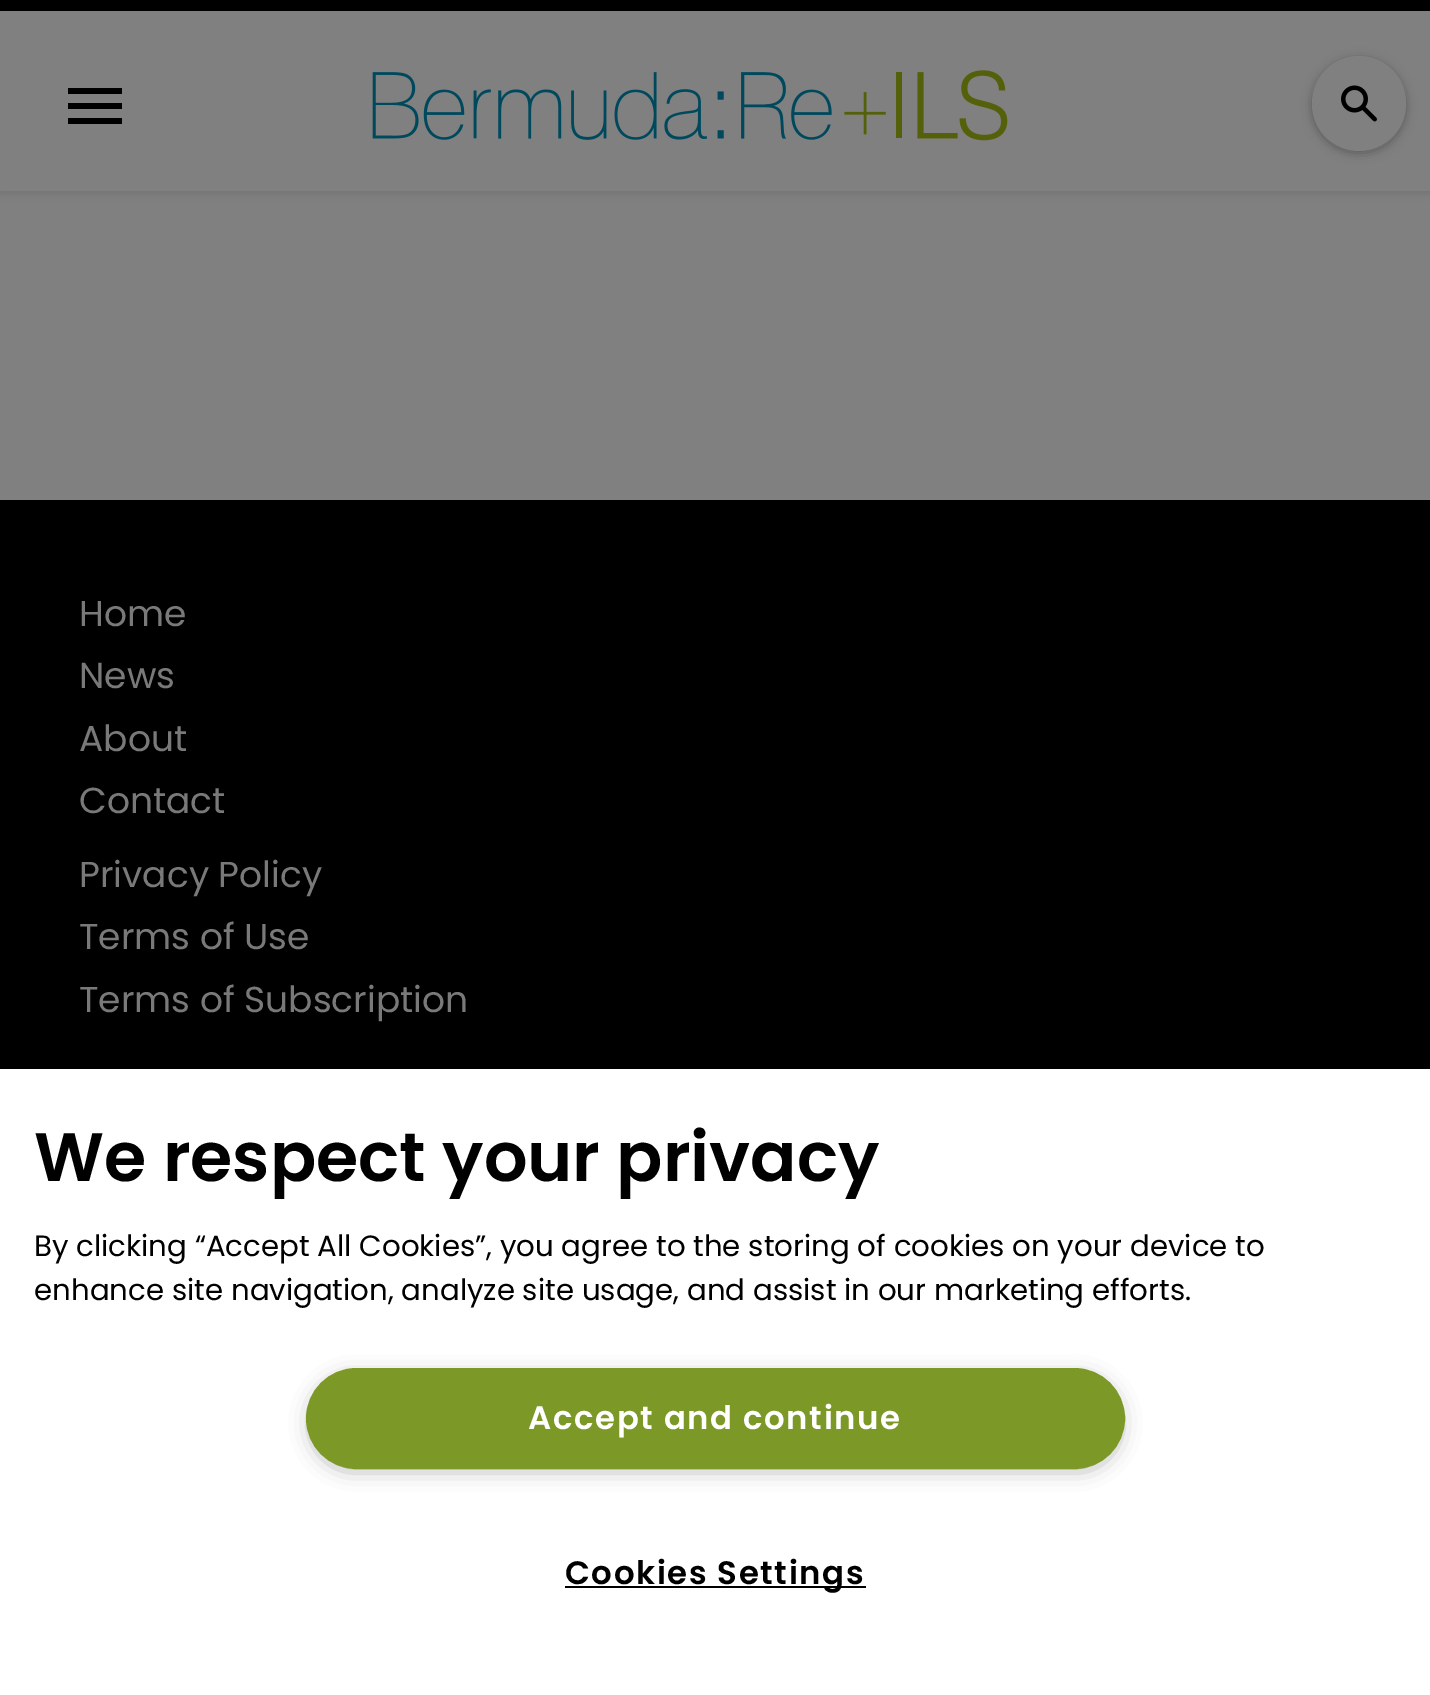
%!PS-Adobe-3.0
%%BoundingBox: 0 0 1430 1695
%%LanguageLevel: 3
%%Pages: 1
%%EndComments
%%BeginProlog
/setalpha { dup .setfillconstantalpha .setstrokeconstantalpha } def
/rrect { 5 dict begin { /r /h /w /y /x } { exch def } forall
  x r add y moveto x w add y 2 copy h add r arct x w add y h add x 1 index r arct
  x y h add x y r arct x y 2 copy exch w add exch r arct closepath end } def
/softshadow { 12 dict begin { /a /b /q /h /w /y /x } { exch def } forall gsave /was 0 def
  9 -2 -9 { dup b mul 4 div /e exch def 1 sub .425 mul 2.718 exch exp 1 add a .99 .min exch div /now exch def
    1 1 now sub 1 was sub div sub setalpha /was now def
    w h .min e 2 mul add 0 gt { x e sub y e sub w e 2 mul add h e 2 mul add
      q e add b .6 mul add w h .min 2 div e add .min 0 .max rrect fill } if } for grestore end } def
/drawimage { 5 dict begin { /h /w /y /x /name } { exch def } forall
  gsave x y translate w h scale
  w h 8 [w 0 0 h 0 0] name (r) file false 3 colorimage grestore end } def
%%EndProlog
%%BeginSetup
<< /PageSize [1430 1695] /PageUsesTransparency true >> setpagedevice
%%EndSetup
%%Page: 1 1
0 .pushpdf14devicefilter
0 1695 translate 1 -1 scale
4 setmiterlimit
0.502 setgray
0 0 1430 1695 rectfill
0 setgray
0 2 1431 192 0 3.5 0.1 softshadow
0.502 setgray
0 11 1430 180 rectfill
0 setgray
0 0 1430 11 rectfill
newpath 68 124 moveto 122 124 lineto 122 118 lineto 68 118 lineto closepath 68 109 moveto 122 109 lineto 122 103 lineto 68 103 lineto closepath 68 88 moveto 68 94 lineto 122 94 lineto 122 88 lineto closepath fill
(images/1.raw) 372 70 636 71 drawimage
1312 59 94 94 47 5.5 0.3 softshadow
0.502 setgray
1312 56 94 95 47 rrect fill
(images/2.raw) 1341 85 36 37 drawimage
0 setgray
0 500 1430 569 rectfill
0 1069 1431 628 0 20 0.2 softshadow
1 setgray
0 1069 1430 626 rectfill
0.6 setgray
313 1379 805 88 44 11 1 softshadow
0.486 0.596 0.153 setrgbcolor
307 1369 817 99 49.5 rrect gsave fill grestore
2 setlinewidth
stroke
0 setgray
565 1586 301 2 rectfill
/Poppins-Regular [36 0 0 -36 0 0] selectfont
0.475 setgray
79 626 moveto (Home) show
79 688 moveto (News) show
79 751 moveto (About) show
79 813 moveto (Contact) show
79 887 moveto (Privacy Policy) show
79 949 moveto (Terms of Use) show
79 1012 moveto (Terms of Subscription) show
/Poppins-SemiBold [68.4 0 0 -68.4 0 0] selectfont
0 setgray
34 1181 moveto (We respect your privacy) show
/Poppins-Regular [29.25 0 0 -29.25 0 0] selectfont
34 1256 moveto (By clicking “Accept All Cookies”, you agree to the storing of cookies on your device to) show
34 1300 moveto (enhance site navigation, analyze site usage, and assist in our marketing efforts.) show
/Poppins-SemiBold [32.4 0 0 -32.4 0 0] selectfont
1 setgray
528 1429 moveto 1.6 0 (Accept and continue) ashow
0 setgray
565 1584 moveto 1.6 0 (Cookies Settings) ashow
.poppdf14devicefilter showpage
%%EOF
